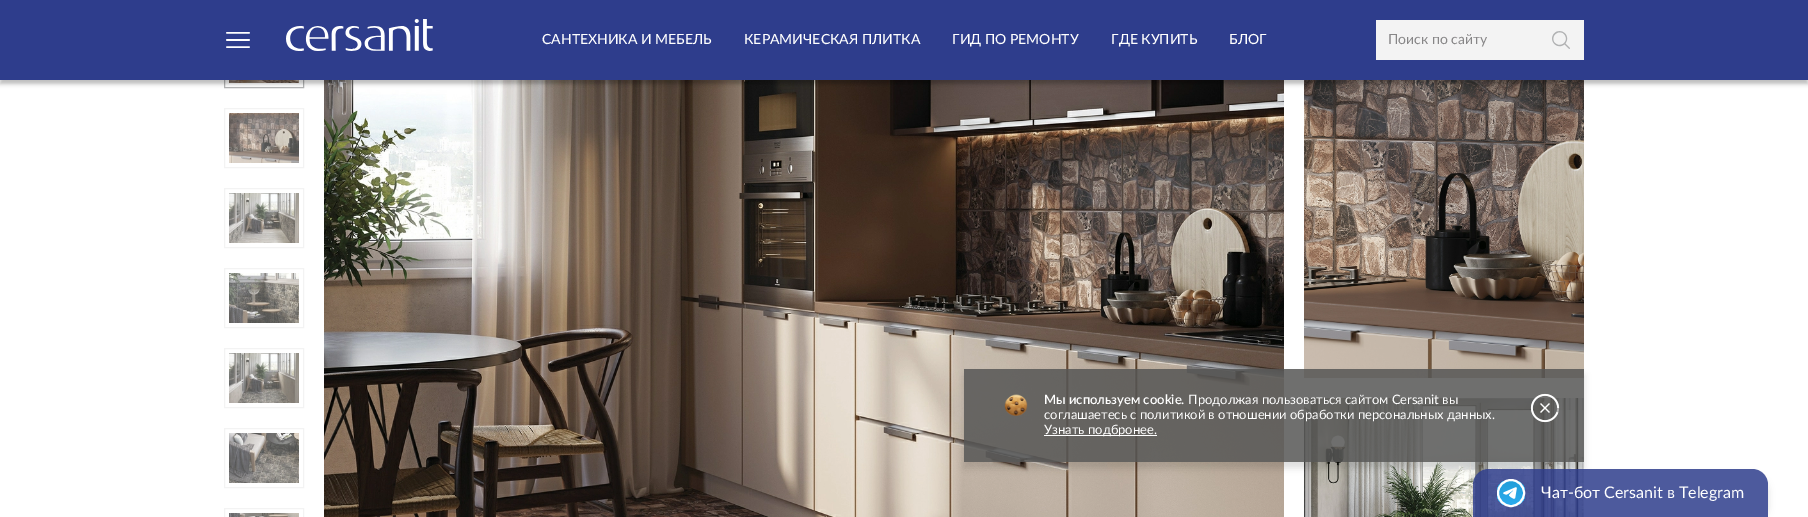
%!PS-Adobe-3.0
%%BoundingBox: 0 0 1808 517
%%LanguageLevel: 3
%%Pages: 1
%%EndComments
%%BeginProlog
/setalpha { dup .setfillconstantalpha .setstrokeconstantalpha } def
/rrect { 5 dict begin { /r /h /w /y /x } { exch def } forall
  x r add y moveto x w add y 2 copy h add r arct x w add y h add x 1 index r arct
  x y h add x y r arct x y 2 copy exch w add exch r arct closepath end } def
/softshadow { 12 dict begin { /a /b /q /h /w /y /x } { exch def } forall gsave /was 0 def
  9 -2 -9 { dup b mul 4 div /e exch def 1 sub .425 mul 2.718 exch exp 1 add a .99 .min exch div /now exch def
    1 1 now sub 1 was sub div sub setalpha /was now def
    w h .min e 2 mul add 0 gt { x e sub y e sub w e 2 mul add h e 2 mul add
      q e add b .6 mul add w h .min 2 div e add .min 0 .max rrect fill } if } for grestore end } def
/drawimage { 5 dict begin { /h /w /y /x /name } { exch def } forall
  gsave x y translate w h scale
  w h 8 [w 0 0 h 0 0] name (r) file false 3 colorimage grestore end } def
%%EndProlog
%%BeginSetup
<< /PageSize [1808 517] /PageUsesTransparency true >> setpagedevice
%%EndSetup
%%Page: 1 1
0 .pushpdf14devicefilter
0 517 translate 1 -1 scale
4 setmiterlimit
1 setgray
0 0 1808 517 rectfill
0.694 0.698 0.702 setrgbcolor
224.5 28.5 79 59 rectstroke
(images/1.raw) 229 80 70 3 drawimage
0.953 setgray
224.5 108.5 79 59 rectstroke
(images/2.raw) 229 113 70 50 drawimage
224.5 188.5 79 59 rectstroke
(images/3.raw) 229 193 70 50 drawimage
224.5 268.5 79 59 rectstroke
(images/4.raw) 229 273 70 50 drawimage
224.5 348.5 79 59 rectstroke
(images/5.raw) 229 353 70 50 drawimage
224.5 428.5 79 59 rectstroke
(images/6.raw) 229 433 70 50 drawimage
224.5 508.5 79 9 rectstroke
(images/7.raw) 229 513 70 4 drawimage
(images/8.raw) 324 80 960 437 drawimage
(images/9.raw) 1304 80 280 298 drawimage
(images/10.raw) 1304 398 280 119 drawimage
0 setgray
0 4 1808 80 0 2 0.25 softshadow
0.18 0.239 0.549 setrgbcolor
0 0 1808 80 rectfill
(images/11.raw) 226 32 24 16 drawimage
(images/12.raw) 286 19 147 32 drawimage
0.953 setgray
1376 20 208 40 rectfill
(images/13.raw) 1552 31 18 18 drawimage
gsave
newpath 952 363 moveto 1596 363 lineto 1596 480 lineto 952 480 lineto closepath 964 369 moveto 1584 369 lineto 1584 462 lineto 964 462 lineto closepath eoclip newpath
0 setgray
964 375 620 93 0 3.5 0.12 softshadow
grestore
0.85 setalpha
0.337 0.337 0.333 setrgbcolor
964 369 620 93 rectfill
1 setalpha
(images/14.raw) 1004 394 24 22 drawimage
1 setgray
1044 435 113 1 rectfill
(images/16.raw) 1540 403 10 10 drawimage
(images/15.raw) 1530 393 30 30 drawimage
gsave
newpath 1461 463 moveto 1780 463 lineto 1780 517 lineto 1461 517 lineto closepath 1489 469 moveto 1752 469 lineto 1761 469 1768 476 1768 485 curveto 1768 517 lineto 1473 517 lineto 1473 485 lineto 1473 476 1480 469 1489 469 curveto closepath eoclip newpath
0 setgray
1473 475 295 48 16 3.5 0.12 softshadow
grestore
0.85 setalpha
0.18 0.239 0.549 setrgbcolor
newpath 1489 469 moveto 1752 469 lineto 1761 469 1768 476 1768 485 curveto 1768 517 lineto 1473 517 lineto 1473 485 lineto 1473 476 1480 469 1489 469 curveto closepath fill
gsave
1497 479 28 28 14 rrect clip newpath
1 setalpha
gsave newpath 1497 481 moveto 1525 481 lineto 1525 505 lineto 1497 505 lineto closepath clip newpath
<< /ShadingType 2 /ColorSpace /DeviceRGB /Coords [1511 505 1511 481] /Extend [true true] /Function << /FunctionType 2 /Domain [0 1] /C0 [0.165 0.671 0.933] /C1 [0.133 0.62 0.851] /N 1 >> >> shfill grestore
grestore
1 setalpha
1 setgray
2 setlinewidth
newpath 1511 493 13 0 360 arc closepath stroke
(images/17.raw) 1503 487 14 12 drawimage
/Lato-Medium [14 0 0 -14 0 0] selectfont
542 44 moveto (САНТЕХНИКА И МЕБЕЛЬ) show
744 44 moveto (КЕРАМИЧЕСКАЯ ПЛИТКА) show
952 44 moveto (ГИД ПО РЕМОНТУ) show
1111 44 moveto (ГДЕ КУПИТЬ) show
1229 44 moveto (БЛОГ) show
/Lato-Regular [14 0 0 -14 0 0] selectfont
0.529 0.525 0.529 setrgbcolor
1388 44 moveto (Поиск по сайту) show
/Lato-SemiBold [13 0 0 -13 0 0] selectfont
1 setgray
1044 404 moveto (Мы используем cookie.) show
/Lato-Regular [13 0 0 -13 0 0] selectfont
1188 404 moveto (Продолжая пользоваться сайтом Cersanit вы) show
1044 419 moveto (соглашаетесь с политикой в отношении обработки персональных данных.) show
1044 434 moveto (Узнать подбронее.) show
/Lato-Regular [16 0 0 -16 0 0] selectfont
1541 498 moveto (Чат-бот Cersanit в Telegram) show
.poppdf14devicefilter showpage
%%EOF
